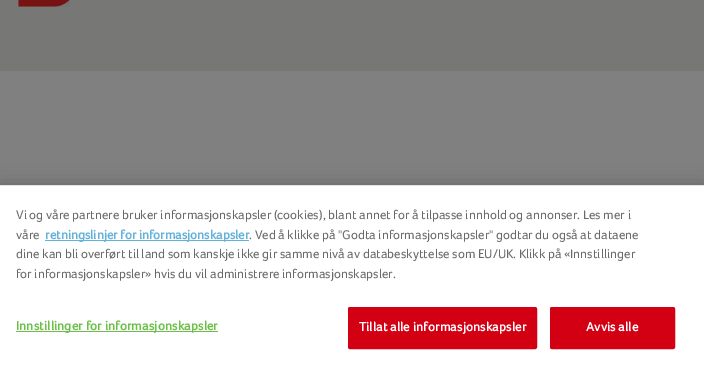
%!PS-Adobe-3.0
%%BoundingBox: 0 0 704 369
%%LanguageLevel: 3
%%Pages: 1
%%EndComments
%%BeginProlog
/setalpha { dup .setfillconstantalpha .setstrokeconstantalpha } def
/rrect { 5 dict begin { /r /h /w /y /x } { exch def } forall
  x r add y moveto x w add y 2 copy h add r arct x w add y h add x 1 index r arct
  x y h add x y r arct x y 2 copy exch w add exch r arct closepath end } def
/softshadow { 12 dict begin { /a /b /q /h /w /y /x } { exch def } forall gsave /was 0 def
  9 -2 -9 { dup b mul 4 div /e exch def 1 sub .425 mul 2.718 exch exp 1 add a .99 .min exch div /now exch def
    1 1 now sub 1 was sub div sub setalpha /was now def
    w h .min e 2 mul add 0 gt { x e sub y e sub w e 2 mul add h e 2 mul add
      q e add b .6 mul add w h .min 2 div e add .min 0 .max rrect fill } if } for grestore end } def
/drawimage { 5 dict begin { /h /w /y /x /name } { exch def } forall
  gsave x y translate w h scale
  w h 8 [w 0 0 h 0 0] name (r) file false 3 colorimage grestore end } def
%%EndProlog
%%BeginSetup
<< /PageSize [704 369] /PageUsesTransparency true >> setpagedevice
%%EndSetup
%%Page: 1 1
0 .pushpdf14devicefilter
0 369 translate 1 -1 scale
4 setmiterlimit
0.502 setgray
0 0 704 369 rectfill
0.467 0.467 0.463 setrgbcolor
0 0 704 71 rectfill
(images/1.raw) 18 0 52 7 drawimage
0 setgray
0 185 704 184 0 9 0.2 softshadow
1 setgray
0 186 704 183 rectfill
0.89 setgray
0 185 704 1 rectfill
0.392 0.698 0.863 setrgbcolor
45 240 204 1 rectfill
0.424 0.753 0.29 setrgbcolor
16 331 202 1 rectfill
0.827 0 0.075 setrgbcolor
348.5 307.5 188 41 1.5 rrect gsave fill grestore
stroke
550.5 307.5 124 41 1.5 rrect gsave fill grestore
stroke
/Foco-Regular [13 0 0 -13 0 0] selectfont
0.412 setgray
16 219 moveto (Vi og våre partnere bruker informasjonskapsler \(cookies\), blant annet for å tilpasse innhold og annonser. Les mer i) show
16 239 moveto (våre) show
/Foco-Bold [13 0 0 -13 0 0] selectfont
0.392 0.698 0.863 setrgbcolor
45 239 moveto (retningslinjer for informasjonskapsler) show
/Foco-Regular [13 0 0 -13 0 0] selectfont
0.412 setgray
249 239 moveto (. Ved å klikke på "Godta informasjonskapsler" godtar du også at dataene) show
16 258 moveto (dine kan bli overført til land som kanskje ikke gir samme nivå av databeskyttelse som EU/UK. Klikk på «Innstillinger) show
16 278 moveto (for informasjonskapsler» hvis du vil administrere informasjonskapsler.) show
/Foco-Bold [13 0 0 -13 0 0] selectfont
0.424 0.753 0.29 setrgbcolor
16 330 moveto 0.15 0 (Innstillinger for informasjonskapsler) ashow
1 setgray
359 331 moveto 0.15 0 (Tillat alle informasjonskapsler) ashow
586 331 moveto 0.15 0 (Avvis alle) ashow
.poppdf14devicefilter showpage
%%EOF
